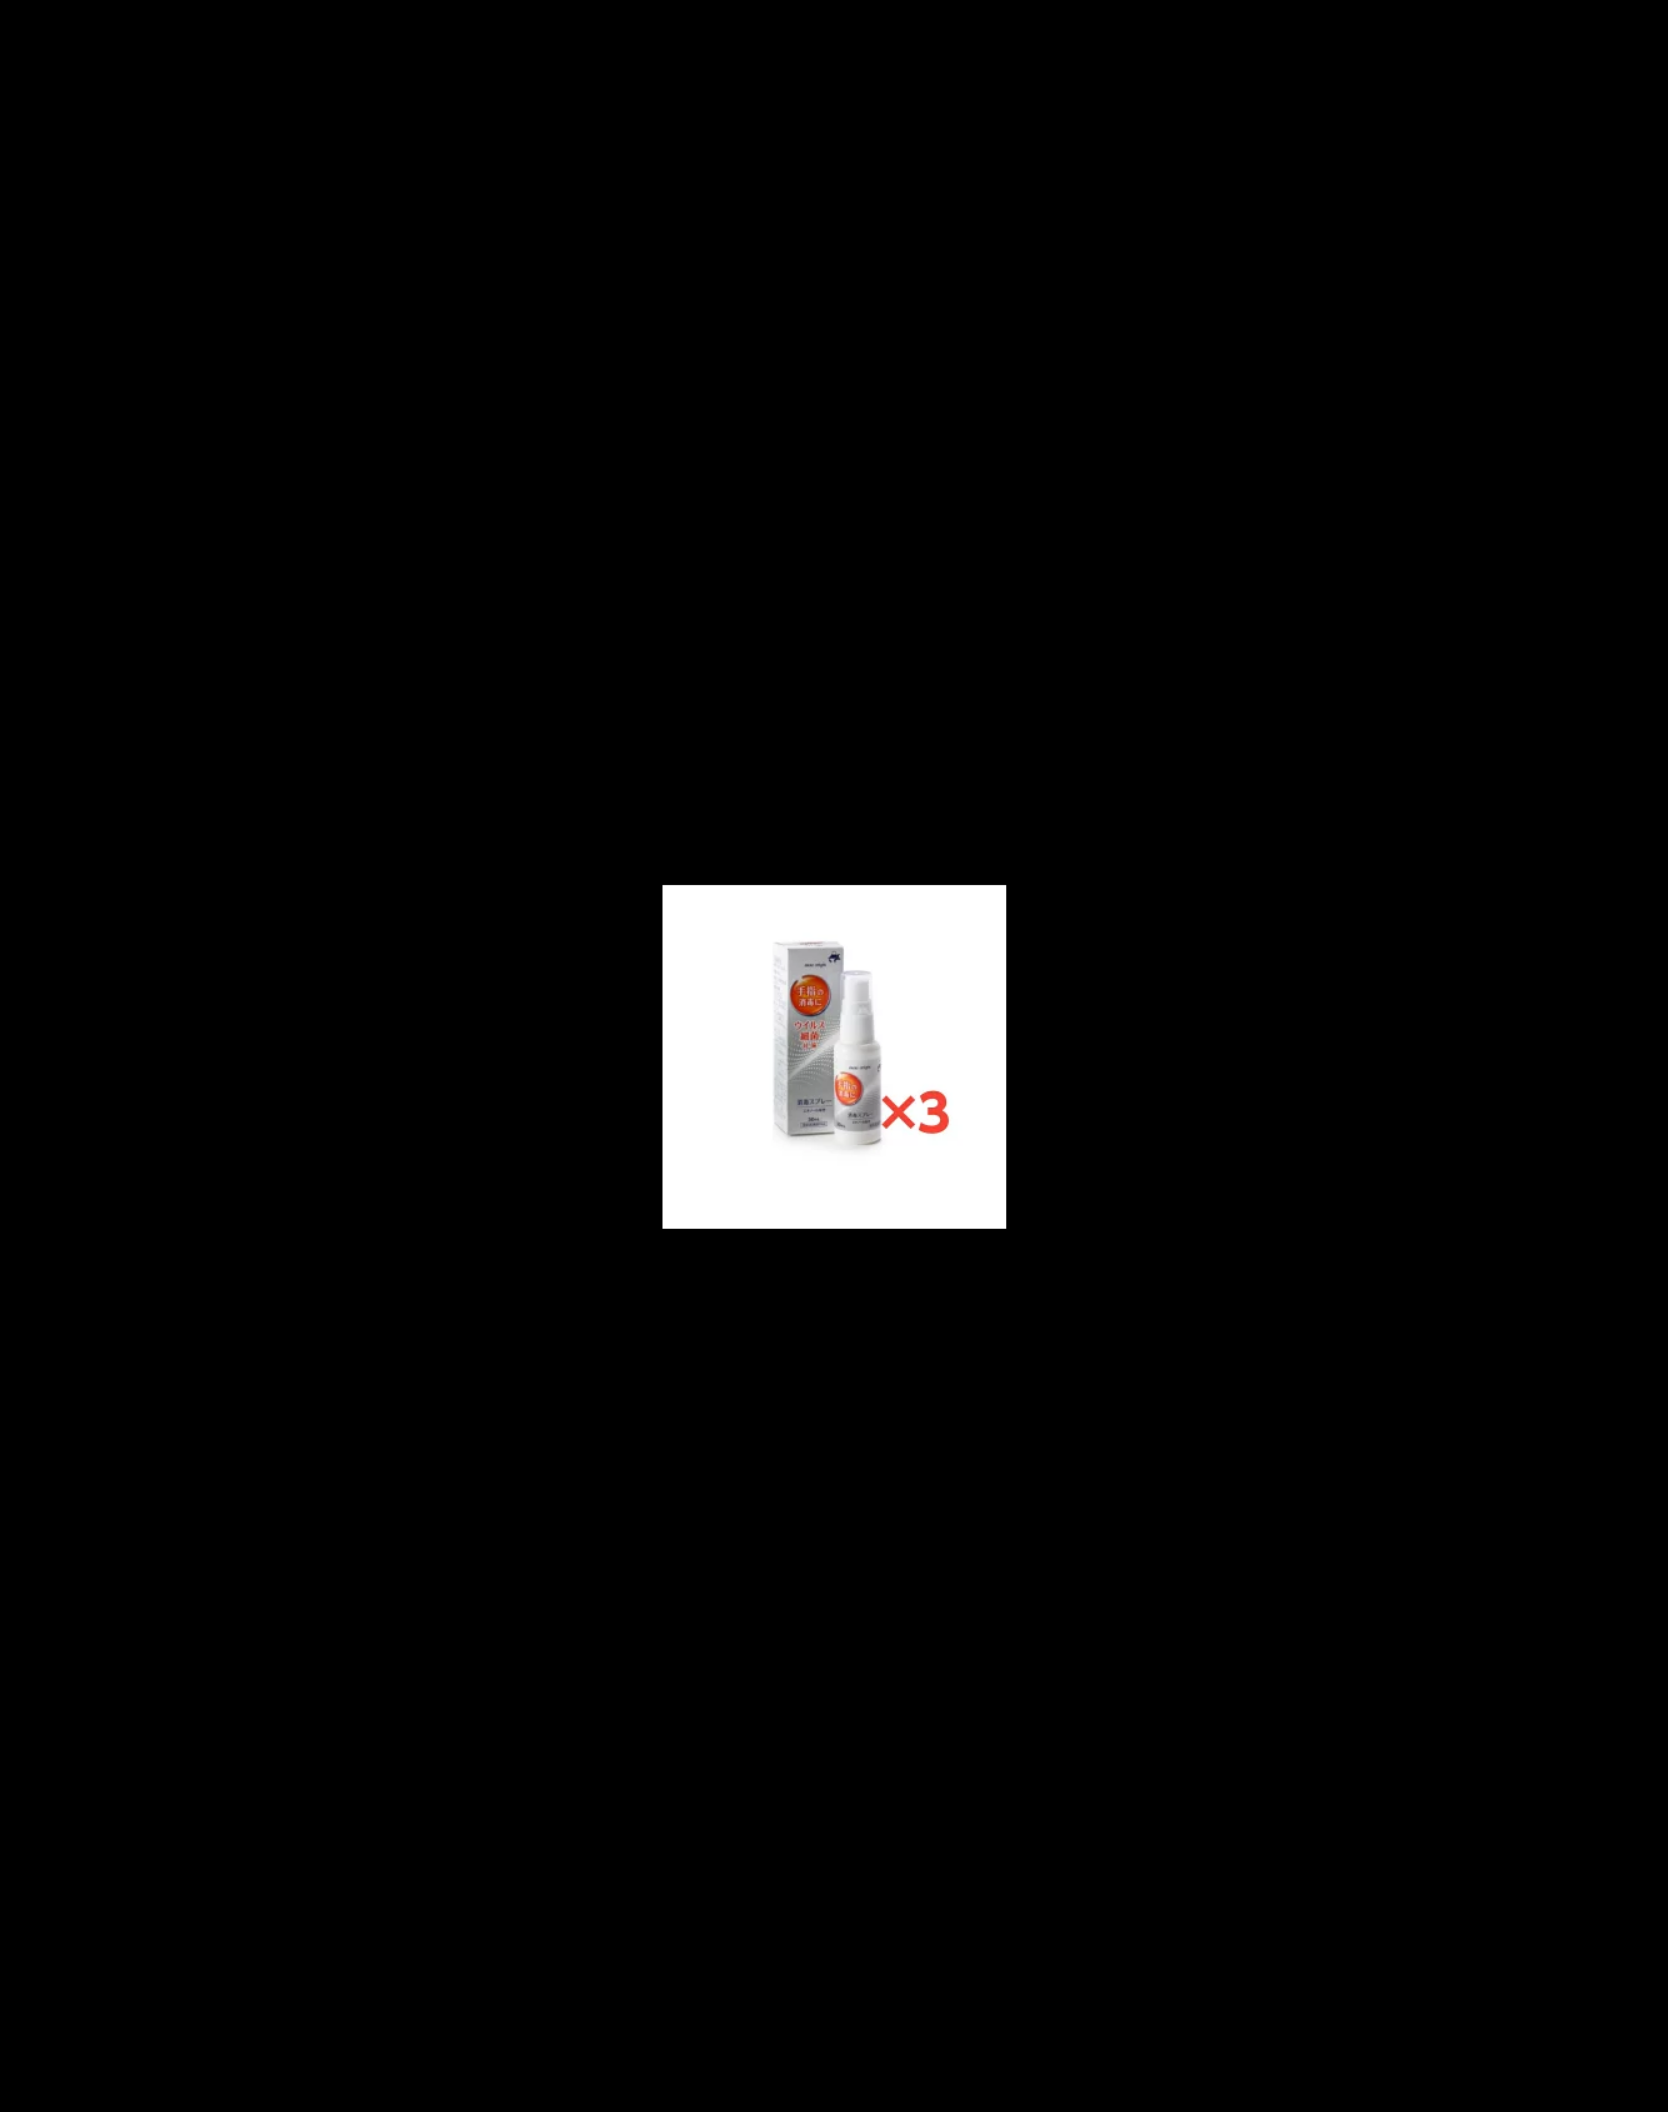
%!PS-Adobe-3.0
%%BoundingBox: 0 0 1668 2112
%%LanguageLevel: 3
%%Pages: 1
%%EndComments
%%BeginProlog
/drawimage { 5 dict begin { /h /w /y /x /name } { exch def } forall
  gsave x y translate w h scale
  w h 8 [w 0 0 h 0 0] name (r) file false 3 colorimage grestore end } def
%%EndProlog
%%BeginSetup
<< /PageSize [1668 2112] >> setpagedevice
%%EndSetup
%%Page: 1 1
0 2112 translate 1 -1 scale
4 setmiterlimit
0 setgray
0 0 1668 2112 rectfill
(images/1.raw) 662 884 345 345 drawimage
showpage
%%EOF
